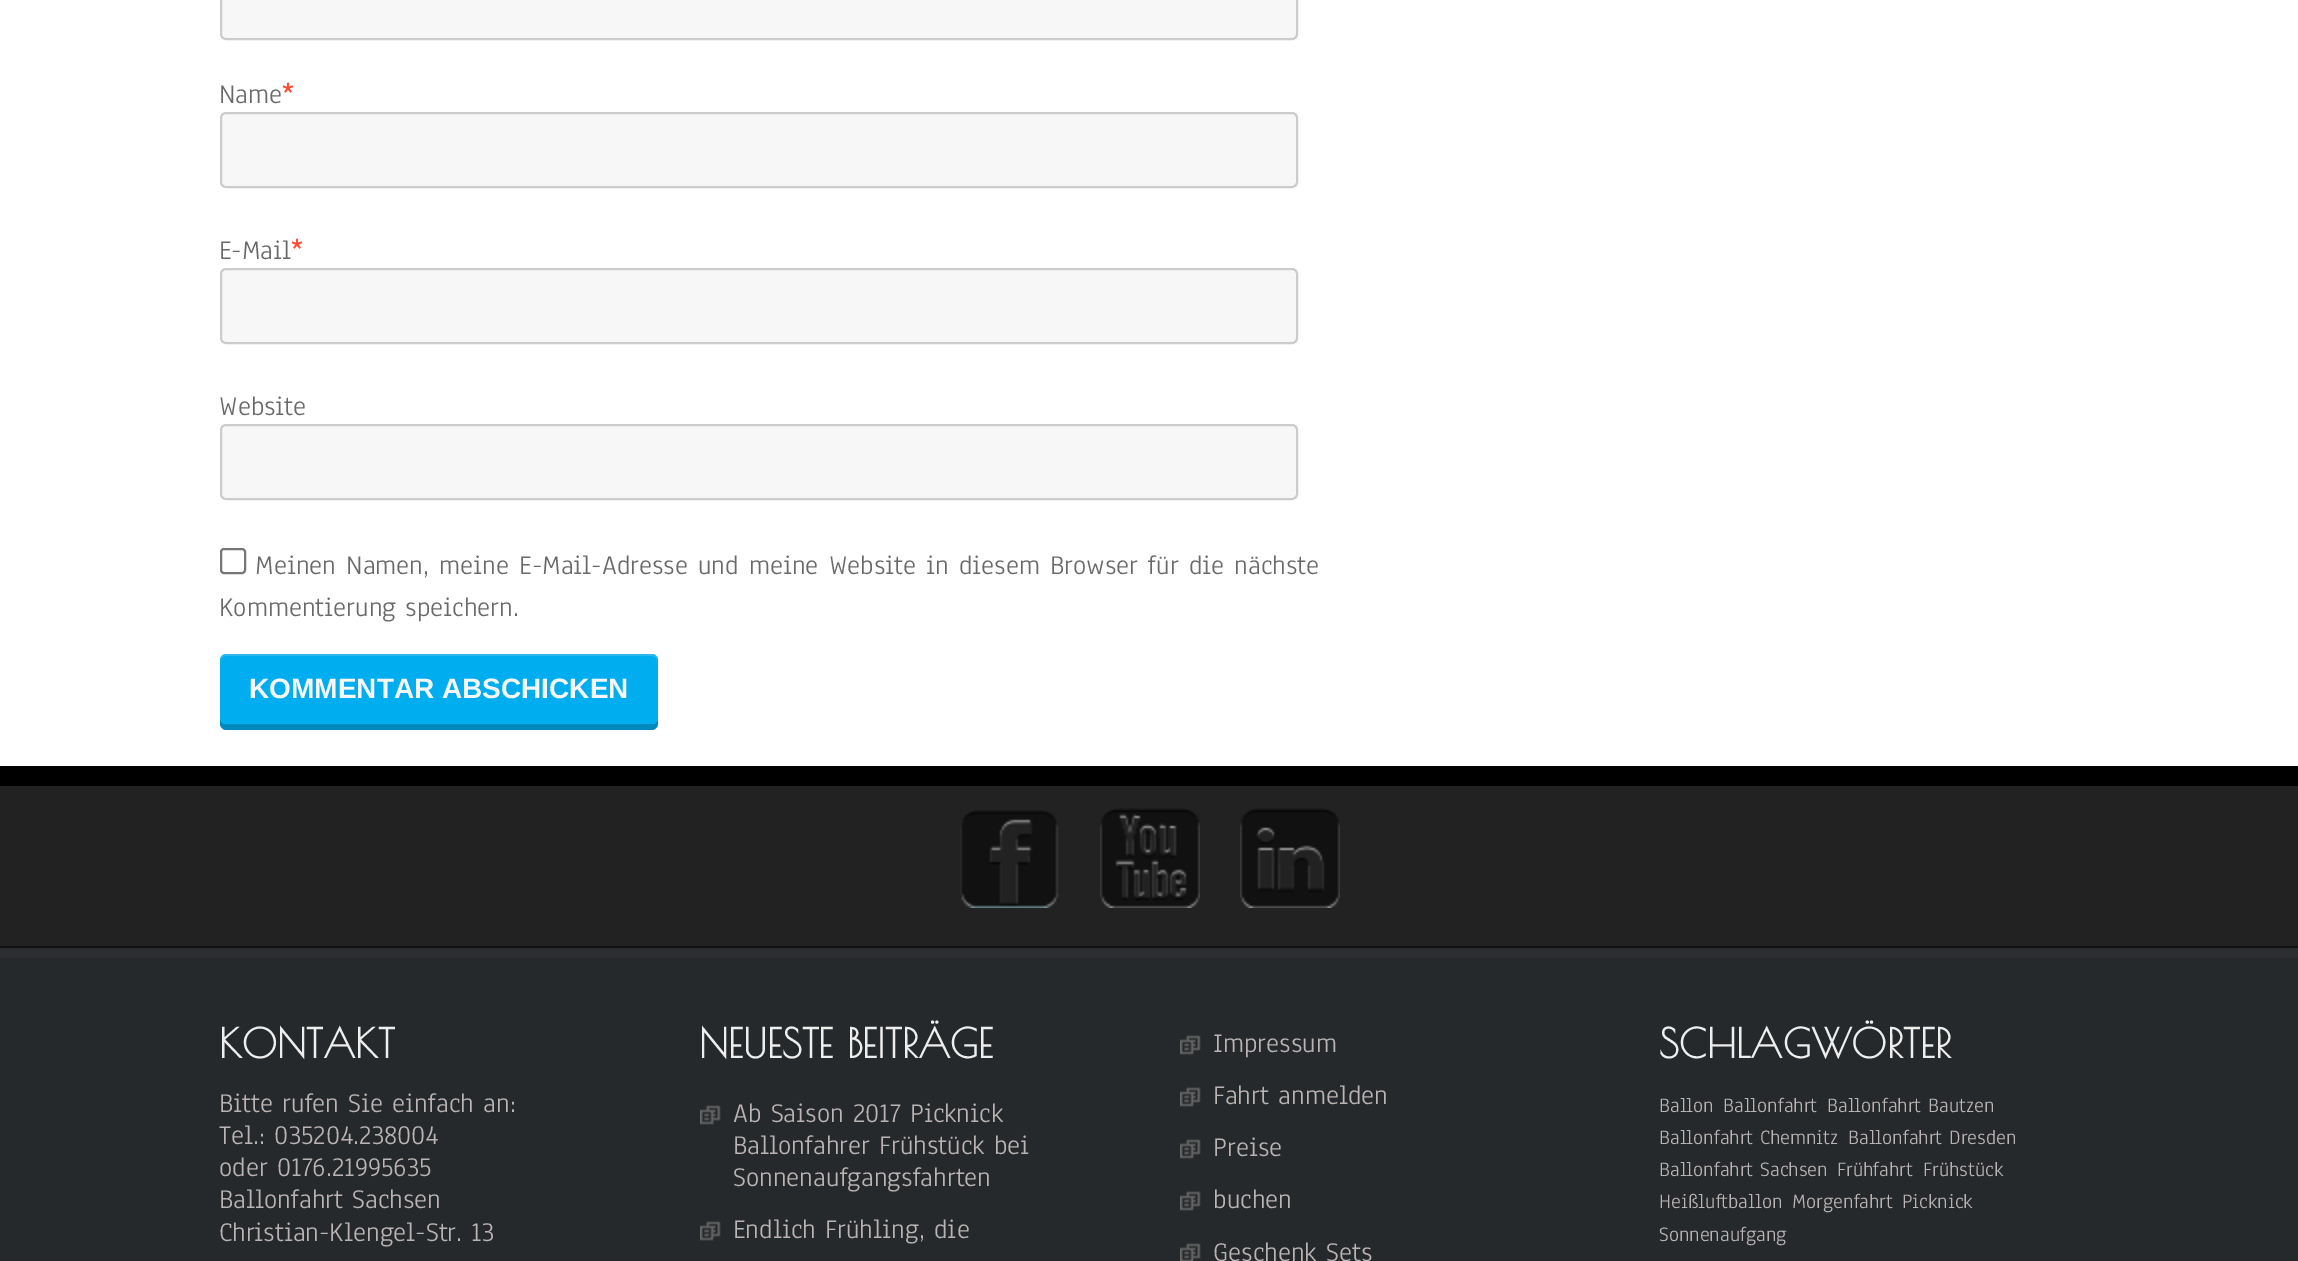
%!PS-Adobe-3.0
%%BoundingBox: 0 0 2298 1261
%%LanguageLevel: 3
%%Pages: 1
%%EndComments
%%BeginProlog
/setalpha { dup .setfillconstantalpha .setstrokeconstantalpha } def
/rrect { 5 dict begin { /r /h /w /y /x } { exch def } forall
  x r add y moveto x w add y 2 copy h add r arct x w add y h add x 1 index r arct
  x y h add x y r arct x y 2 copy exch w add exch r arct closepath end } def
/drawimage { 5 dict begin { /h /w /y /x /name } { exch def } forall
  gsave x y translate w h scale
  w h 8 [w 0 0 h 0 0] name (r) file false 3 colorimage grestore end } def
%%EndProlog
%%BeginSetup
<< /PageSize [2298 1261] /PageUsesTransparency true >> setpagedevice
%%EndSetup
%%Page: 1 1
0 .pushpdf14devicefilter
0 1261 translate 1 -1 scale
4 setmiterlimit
1 setgray
0 0 2298 1261 rectfill
0.969 setgray
221 -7 1076 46 5 rrect gsave fill grestore
0.8 setgray
2 setlinewidth
stroke
0.969 setgray
221 113 1076 74 5 rrect gsave fill grestore
0.8 setgray
stroke
0.969 setgray
221 269 1076 74 5 rrect gsave fill grestore
0.8 setgray
stroke
0.969 setgray
221 425 1076 74 5 rrect gsave fill grestore
0.8 setgray
stroke
0.463 setgray
221 549 24 24 3 rrect stroke
0 0.537 0.737 setrgbcolor
newpath 220 718 moveto 220 724 lineto 220 727 223 730 226 730 curveto 652 730 lineto 655 730 658 727 658 724 curveto 658 718 lineto 658 721 655 724 652 724 curveto 226 724 lineto 223 724 220 721 220 718 curveto closepath fill
0 0.682 0.937 setrgbcolor
220 654 438 70 6 rrect fill
0.2 setalpha
0.882 setgray
newpath 226 656 moveto 652 656 lineto 655 656 658 659 658 662 curveto 658 660 lineto 658 657 655 654 652 654 curveto 226 654 lineto 223 654 220 657 220 660 curveto 220 662 lineto 220 659 223 656 226 656 curveto closepath fill
1 setalpha
0.149 0.161 0.169 setrgbcolor
0 958 2298 303 rectfill
(images/1.raw) 0 948 2298 10 drawimage
0 setgray
0 766 2298 20 rectfill
0.067 setgray
0 946 2298 2 rectfill
0.133 setgray
0 786 2298 160 rectfill
(images/2.raw) 960 810 99 98 drawimage
(images/3.raw) 1100 808 100 100 drawimage
(images/4.raw) 1240 808 100 100 drawimage
(images/5.raw) 700 1105 21 20 drawimage
(images/5.raw) 700 1221 21 20 drawimage
(images/5.raw) 1180 1035 21 20 drawimage
(images/5.raw) 1180 1087 21 20 drawimage
(images/5.raw) 1180 1139 21 20 drawimage
(images/5.raw) 1180 1191 21 20 drawimage
(images/6.raw) 1180 1243 21 18 drawimage
/Anaheim-Regular [28 0 0 -28 0 0] selectfont
0.416 0.412 0.412 setrgbcolor
219 103 moveto (Name) show
/Anaheim-Bold [28 0 0 -28 0 0] selectfont
1 0.294 0.2 setrgbcolor
282 103 moveto (*) show
/Anaheim-Regular [28 0 0 -28 0 0] selectfont
0.416 0.412 0.412 setrgbcolor
219 259 moveto (E-Mail) show
/Anaheim-Bold [28 0 0 -28 0 0] selectfont
1 0.294 0.2 setrgbcolor
291 259 moveto (*) show
/Anaheim-Regular [28 0 0 -28 0 0] selectfont
0.416 0.412 0.412 setrgbcolor
219 415 moveto (Website) show
255 574 moveto 0.9 0 32 (Meinen Namen, meine E-Mail-Adresse und meine Website in diesem Browser für die nächste) widthshow
219 616 moveto (Kommentierung speichern.) show
/LiberationSans-Bold [28 0 0 -28 0 0] selectfont
0.969 setgray
249 698 moveto (KOMMENTAR ABSCHICKEN) show
/PoiretOne-Bold [40 0 0 -40 0 0] selectfont
0.933 setgray
219 1058 moveto (KONTAKT) show
/Anaheim-Regular [28 0 0 -28 0 0] selectfont
0.729 0.706 0.706 setrgbcolor
219 1112 moveto (Bitte rufen Sie einfach an:) show
219 1144 moveto (Tel.: 035204.238004) show
219 1176 moveto (oder 0176.21995635) show
219 1208 moveto (Ballonfahrt Sachsen) show
219 1241 moveto (Christian-Klengel-Str. 13) show
/PoiretOne-Bold [40 0 0 -40 0 0] selectfont
0.933 setgray
699 1058 moveto (NEUESTE BEITRÄGE) show
/Anaheim-Regular [28 0 0 -28 0 0] selectfont
0.729 0.706 0.706 setrgbcolor
733 1122 moveto (Ab Saison 2017 Picknick) show
733 1154 moveto (Ballonfahrer Frühstück bei) show
733 1186 moveto (Sonnenaufgangsfahrten) show
733 1238 moveto (Endlich Frühling, die) show
1213 1052 moveto (Impressum) show
1213 1104 moveto (Fahrt anmelden) show
1213 1156 moveto (Preise) show
1213 1208 moveto (buchen) show
1213 1261 moveto (Geschenk Sets) show
/PoiretOne-Bold [40 0 0 -40 0 0] selectfont
0.933 setgray
1659 1058 moveto (SCHLAGWÖRTER) show
/Anaheim-Regular [21.25 0 0 -21.25 0 0] selectfont
0.729 0.706 0.706 setrgbcolor
1659 1112 moveto (Ballon) show
1723 1112 moveto (Ballonfahrt) show
1827 1112 moveto (Ballonfahrt Bautzen) show
1659 1144 moveto (Ballonfahrt Chemnitz) show
1848 1144 moveto (Ballonfahrt Dresden) show
1659 1176 moveto (Ballonfahrt Sachsen) show
1837 1176 moveto (Frühfahrt) show
1923 1176 moveto (Frühstück) show
1659 1208 moveto (Heißluftballon) show
1792 1208 moveto (Morgenfahrt) show
1902 1208 moveto (Picknick) show
1659 1241 moveto (Sonnenaufgang) show
.poppdf14devicefilter showpage
%%EOF
